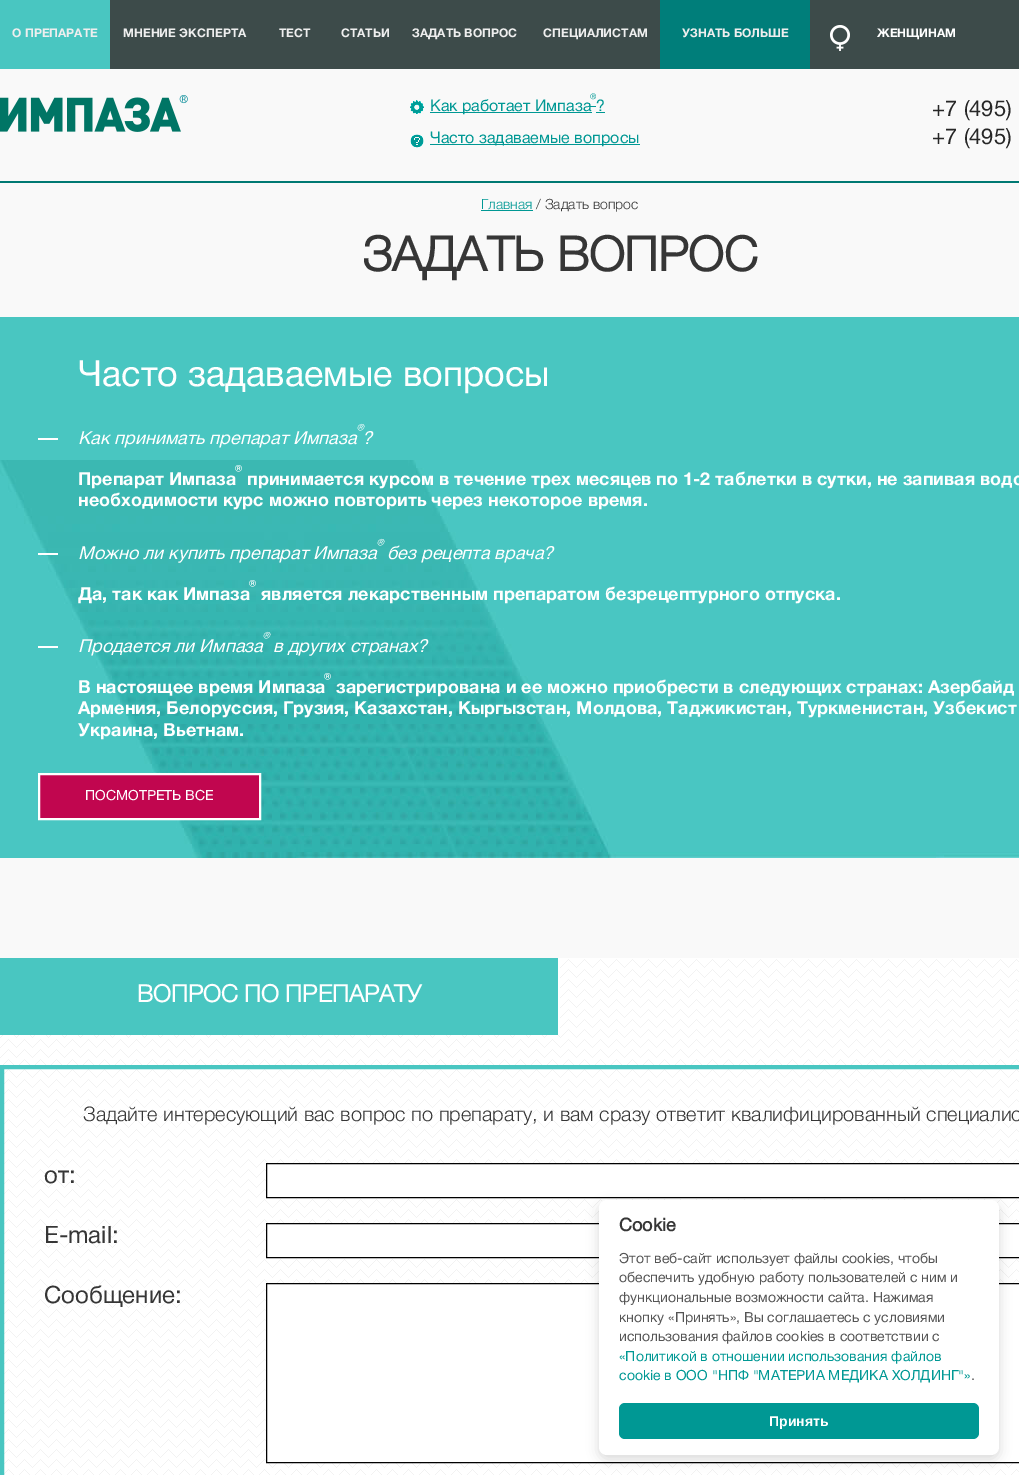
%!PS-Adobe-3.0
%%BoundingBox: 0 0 1019 1475
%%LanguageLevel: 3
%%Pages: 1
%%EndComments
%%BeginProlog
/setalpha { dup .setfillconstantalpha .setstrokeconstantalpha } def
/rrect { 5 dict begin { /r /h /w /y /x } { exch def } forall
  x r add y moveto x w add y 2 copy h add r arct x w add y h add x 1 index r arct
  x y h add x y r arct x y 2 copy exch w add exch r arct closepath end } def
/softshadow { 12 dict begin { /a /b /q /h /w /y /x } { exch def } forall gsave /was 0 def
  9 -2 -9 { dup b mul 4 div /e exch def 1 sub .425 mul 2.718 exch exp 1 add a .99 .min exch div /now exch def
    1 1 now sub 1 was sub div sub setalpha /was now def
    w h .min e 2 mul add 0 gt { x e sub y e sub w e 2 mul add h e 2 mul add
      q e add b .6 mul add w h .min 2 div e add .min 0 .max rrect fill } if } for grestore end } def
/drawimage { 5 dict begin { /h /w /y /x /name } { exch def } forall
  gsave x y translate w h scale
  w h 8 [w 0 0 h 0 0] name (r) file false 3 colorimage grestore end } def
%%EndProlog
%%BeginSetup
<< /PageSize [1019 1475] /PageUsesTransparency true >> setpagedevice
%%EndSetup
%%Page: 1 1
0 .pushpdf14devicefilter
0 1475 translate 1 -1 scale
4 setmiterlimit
0.976 setgray
0 0 1019 1475 rectfill
0.239 0.294 0.29 setrgbcolor
110 0 909 69 rectfill
0.286 0.776 0.757 setrgbcolor
0 0 110 69 rectfill
0 0.494 0.478 setrgbcolor
660 0 150 69 rectfill
(images/1.raw) 830 25 20 26 drawimage
(images/2.raw) 0 95 188 37 drawimage
(images/3.raw) 410 100 14 14 drawimage
0 0.596 0.58 setrgbcolor
590 106 6 1 rectfill
430 112 162 1 rectfill
596 112 9 1 rectfill
(images/4.raw) 410 134 14 14 drawimage
430 144 210 1 rectfill
0 0.475 0.451 setrgbcolor
0 181 1019 2 rectfill
0 0.596 0.58 setrgbcolor
481 210 52 1 rectfill
0.286 0.776 0.757 setrgbcolor
0 317 1019 143 rectfill
(images/5.raw) 0 460 1019 398 drawimage
1 setgray
38 438 20 2 rectfill
38 553 20 2 rectfill
38 646 20 2 rectfill
0.757 0.024 0.31 setrgbcolor
newpath 39 774 moveto 260 774 lineto 260 819 lineto 39 819 lineto closepath gsave fill grestore
1 setgray
2 setlinewidth
stroke
(images/6.raw) 0 958 1019 517 drawimage
0.286 0.776 0.757 setrgbcolor
0 958 558 77 rectfill
1 setgray
558 958 2 77 rectfill
0.286 0.776 0.757 setrgbcolor
4 setlinewidth
2 1067 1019 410 rectstroke
1 setgray
newpath 266.5 1163.5 moveto 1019.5 1163.5 lineto 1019.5 1197.5 lineto 266.5 1197.5 lineto closepath gsave fill grestore
0 setgray
1 setlinewidth
stroke
1 setgray
newpath 266.5 1223.5 moveto 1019.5 1223.5 lineto 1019.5 1257.5 lineto 266.5 1257.5 lineto closepath gsave fill grestore
0 setgray
stroke
1 setgray
newpath 266.5 1283.5 moveto 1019.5 1283.5 lineto 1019.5 1462.5 lineto 266.5 1462.5 lineto closepath gsave fill grestore
0 setgray
stroke
599 1204 400 255 8 6 0.15 softshadow
1 setgray
599 1200 400 255 8 rrect fill
0 0.596 0.58 setrgbcolor
619 1403 360 36 6 rrect fill
/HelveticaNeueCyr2-Bold [12 0 0 -12 0 0] selectfont
0.933 setgray
12 37 moveto (О ПРЕПАРАТЕ) show
123 37 moveto (МНЕНИЕ ЭКСПЕРТА) show
279 37 moveto (ТЕСТ) show
341 37 moveto (СТАТЬИ) show
412 37 moveto (ЗАДАТЬ ВОПРОС) show
543 37 moveto (СПЕЦИАЛИСТАМ) show
682 37 moveto (УЗНАТЬ БОЛЬШЕ) show
1 setgray
877 37 moveto (ЖЕНЩИНАМ) show
/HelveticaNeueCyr-Regular [16 0 0 -16 0 0] selectfont
0 0.596 0.58 setrgbcolor
590 105 moveto (®) show
430 111 moveto (Как работает Импаза) show
596 111 moveto (?) show
430 143 moveto (Часто задаваемые вопросы) show
/HelveticaNeueCyr-Regular [22 0 0 -22 0 0] selectfont
0.153 setgray
932 116 moveto (+7 \(495\)) show
932 144 moveto (+7 \(495\)) show
/HelveticaNeueCyr-Light [14 0 0 -14 0 0] selectfont
0 0.596 0.58 setrgbcolor
481 209 moveto (Главная) show
0.212 setgray
536 209 moveto (/ Задать вопрос) show
/HelveticaNeueCyr-Bold [48 0 0 -48 0 0] selectfont
362 271 moveto (ЗАДАТЬ ВОПРОС) show
/HelveticaNeueCyr-Regular [36 0 0 -36 0 0] selectfont
1 setgray
78 386 moveto (Часто задаваемые вопросы) show
/HelveticaNeueCyr-Italic [18 0 0 -18 0 0] selectfont
355 437 moveto (®) show
78 444 moveto (Как принимать препарат Импаза) show
362 444 moveto (?) show
/HelveticaNeueCyr2-Bold [18 0 0 -18 0 0] selectfont
235 478 moveto (®) show
78 485 moveto (Препарат Импаза) show
247 485 moveto (принимается курсом в течение трех месяцев по 1-2 таблетки в сутки, не запивая водо) show
78 506 moveto (необходимости курс можно повторить через некоторое время.) show
/HelveticaNeueCyr-Italic [18 0 0 -18 0 0] selectfont
375 552 moveto (®) show
78 559 moveto (Можно ли купить препарат Импаза) show
387 559 moveto (без рецепта врача?) show
/HelveticaNeueCyr2-Bold [18 0 0 -18 0 0] selectfont
249 593 moveto (®) show
78 600 moveto (Да, так как Импаза) show
261 600 moveto (является лекарственным препаратом безрецептурного отпуска.) show
/HelveticaNeueCyr-Italic [18 0 0 -18 0 0] selectfont
261 645 moveto (®) show
78 652 moveto (Продается ли Импаза) show
273 652 moveto (в других странах?) show
/HelveticaNeueCyr2-Bold [18 0 0 -18 0 0] selectfont
324 686 moveto (®) show
78 693 moveto (В настоящее время Импаза) show
336 693 moveto (зарегистрирована и ее можно приобрести в следующих странах: Азербайд) show
78 714 moveto (Армения, Белоруссия, Грузия, Казахстан, Кыргызстан, Молдова, Таджикистан, Туркменистан, Узбекист) show
78 736 moveto (Украина, Вьетнам.) show
/HelveticaNeueCyr-Regular [14 0 0 -14 0 0] selectfont
85 800 moveto (ПОСМОТРЕТЬ ВСЕ) show
/HelveticaNeueCyr-Bold [24 0 0 -24 0 0] selectfont
137 1002 moveto (ВОПРОС ПО ПРЕПАРАТУ) show
/HelveticaNeueCyr-Light [20 0 0 -20 0 0] selectfont
0.212 setgray
83 1121 moveto (Задайте интересующий вас вопрос по препарату, и вам сразу ответит квалифицированный специалис) show
/HelveticaNeueCyr-Regular [24 0 0 -24 0 0] selectfont
44 1183 moveto (от:) show
44 1243 moveto (E-mail:) show
44 1303 moveto (Сообщение:) show
/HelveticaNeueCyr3-Bold [18 0 0 -18 0 0] selectfont
619 1231 moveto (Cookie) show
/HelveticaNeueCyr-Regular [14 0 0 -14 0 0] selectfont
0.333 setgray
619 1263 moveto (Этот веб-сайт использует файлы cookies, чтобы) show
619 1282 moveto (обеспечить удобную работу пользователей с ним и) show
619 1302 moveto (функциональные возможности сайта. Нажимая) show
619 1322 moveto (кнопку «Принять», Вы соглашаетесь с условиями) show
619 1341 moveto (использования файлов cookies в соответствии c) show
0 0.596 0.58 setrgbcolor
619 1361 moveto («Политикой в отношении использования файлов) show
619 1380 moveto (cookie в ООО "НПФ "МАТЕРИА МЕДИКА ХОЛДИНГ"») show
0.333 setgray
971 1380 moveto (.) show
/LiberationSans-Bold [14 0 0 -14 0 0] selectfont
1 setgray
769 1426 moveto (Принять) show
.poppdf14devicefilter showpage
%%EOF
